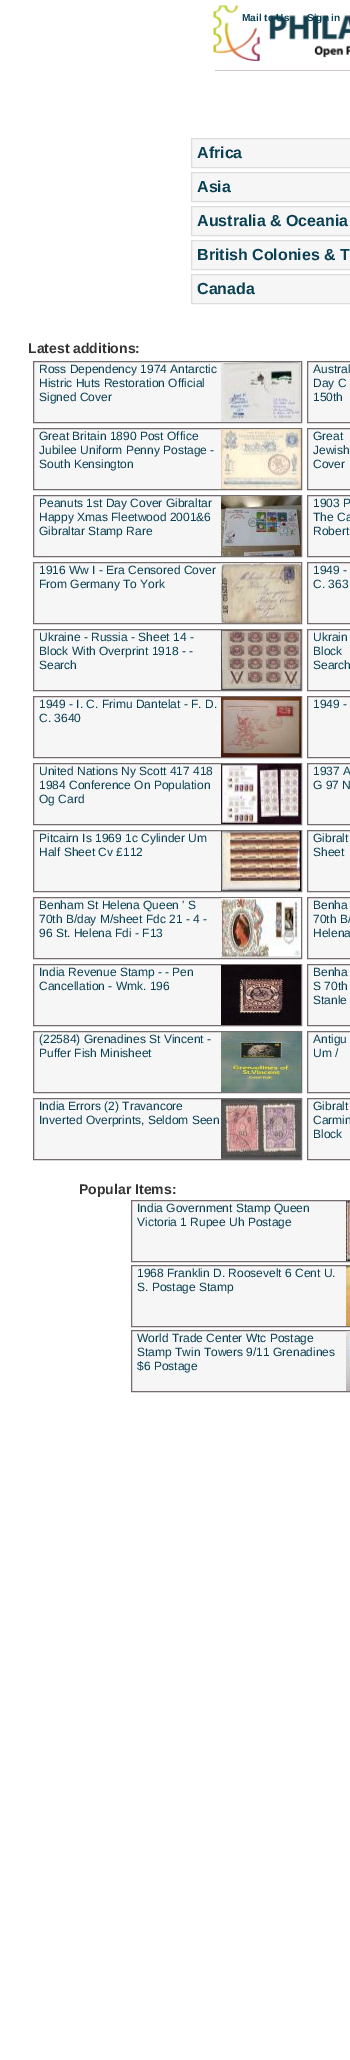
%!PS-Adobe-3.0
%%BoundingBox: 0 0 350 2060
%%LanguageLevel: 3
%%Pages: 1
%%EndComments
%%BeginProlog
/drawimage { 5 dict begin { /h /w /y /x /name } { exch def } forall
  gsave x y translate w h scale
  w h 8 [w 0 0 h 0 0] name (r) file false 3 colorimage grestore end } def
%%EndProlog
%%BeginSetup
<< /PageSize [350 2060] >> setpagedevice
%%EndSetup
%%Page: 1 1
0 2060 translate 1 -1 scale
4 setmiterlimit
1 setgray
0 0 350 2060 rectfill
(images/1.raw) 213 5 137 56 drawimage
0.82 0.776 0.788 setrgbcolor
215 70 135 1 rectfill
0.965 setgray
newpath 191.5 138.5 moveto 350.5 138.5 lineto 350.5 167.5 lineto 191.5 167.5 lineto closepath gsave fill grestore
0.867 setgray
stroke
0.965 setgray
newpath 191.5 172.5 moveto 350.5 172.5 lineto 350.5 201.5 lineto 191.5 201.5 lineto closepath gsave fill grestore
0.867 setgray
stroke
0.965 setgray
newpath 191.5 206.5 moveto 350.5 206.5 lineto 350.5 235.5 lineto 191.5 235.5 lineto closepath gsave fill grestore
0.867 setgray
stroke
0.965 setgray
newpath 191.5 240.5 moveto 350.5 240.5 lineto 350.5 269.5 lineto 191.5 269.5 lineto closepath gsave fill grestore
0.867 setgray
stroke
0.965 setgray
newpath 191.5 274.5 moveto 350.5 274.5 lineto 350.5 303.5 lineto 191.5 303.5 lineto closepath gsave fill grestore
0.867 setgray
stroke
0.965 setgray
34 362 187 60 rectfill
0.455 0.424 0.431 setrgbcolor
33.5 361.5 268 61 rectstroke
(images/2.raw) 221 362 80 60 drawimage
0.965 setgray
newpath 307.5 361.5 moveto 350.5 361.5 lineto 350.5 422.5 lineto 307.5 422.5 lineto closepath gsave fill grestore
0.455 0.424 0.431 setrgbcolor
stroke
0.965 setgray
34 429 187 60 rectfill
0.455 0.424 0.431 setrgbcolor
33.5 428.5 268 61 rectstroke
(images/3.raw) 221 429 80 60 drawimage
0.965 setgray
newpath 307.5 428.5 moveto 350.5 428.5 lineto 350.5 489.5 lineto 307.5 489.5 lineto closepath gsave fill grestore
0.455 0.424 0.431 setrgbcolor
stroke
0.965 setgray
34 496 187 60 rectfill
0.455 0.424 0.431 setrgbcolor
33.5 495.5 268 61 rectstroke
(images/4.raw) 221 496 80 60 drawimage
0.965 setgray
newpath 307.5 495.5 moveto 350.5 495.5 lineto 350.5 556.5 lineto 307.5 556.5 lineto closepath gsave fill grestore
0.455 0.424 0.431 setrgbcolor
stroke
0.965 setgray
34 563 187 60 rectfill
0.455 0.424 0.431 setrgbcolor
33.5 562.5 268 61 rectstroke
(images/5.raw) 221 563 80 60 drawimage
0.965 setgray
newpath 307.5 562.5 moveto 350.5 562.5 lineto 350.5 623.5 lineto 307.5 623.5 lineto closepath gsave fill grestore
0.455 0.424 0.431 setrgbcolor
stroke
0.965 setgray
34 630 187 60 rectfill
0.455 0.424 0.431 setrgbcolor
33.5 629.5 268 61 rectstroke
(images/6.raw) 221 630 80 60 drawimage
0.965 setgray
newpath 307.5 629.5 moveto 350.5 629.5 lineto 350.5 690.5 lineto 307.5 690.5 lineto closepath gsave fill grestore
0.455 0.424 0.431 setrgbcolor
stroke
0.965 setgray
34 697 187 60 rectfill
0.455 0.424 0.431 setrgbcolor
33.5 696.5 268 61 rectstroke
(images/7.raw) 221 697 80 60 drawimage
0.965 setgray
newpath 307.5 696.5 moveto 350.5 696.5 lineto 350.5 757.5 lineto 307.5 757.5 lineto closepath gsave fill grestore
0.455 0.424 0.431 setrgbcolor
stroke
0.965 setgray
34 764 187 60 rectfill
0.455 0.424 0.431 setrgbcolor
33.5 763.5 268 61 rectstroke
(images/8.raw) 221 764 80 60 drawimage
0.965 setgray
newpath 307.5 763.5 moveto 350.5 763.5 lineto 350.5 824.5 lineto 307.5 824.5 lineto closepath gsave fill grestore
0.455 0.424 0.431 setrgbcolor
stroke
0.965 setgray
34 831 187 60 rectfill
0.455 0.424 0.431 setrgbcolor
33.5 830.5 268 61 rectstroke
(images/9.raw) 221 831 80 60 drawimage
0.965 setgray
newpath 307.5 830.5 moveto 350.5 830.5 lineto 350.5 891.5 lineto 307.5 891.5 lineto closepath gsave fill grestore
0.455 0.424 0.431 setrgbcolor
stroke
0.965 setgray
34 898 187 60 rectfill
0.455 0.424 0.431 setrgbcolor
33.5 897.5 268 61 rectstroke
(images/10.raw) 221 898 80 60 drawimage
0.965 setgray
newpath 307.5 897.5 moveto 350.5 897.5 lineto 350.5 958.5 lineto 307.5 958.5 lineto closepath gsave fill grestore
0.455 0.424 0.431 setrgbcolor
stroke
0.965 setgray
34 965 187 60 rectfill
0.455 0.424 0.431 setrgbcolor
33.5 964.5 268 61 rectstroke
(images/11.raw) 221 965 80 60 drawimage
0.965 setgray
newpath 307.5 964.5 moveto 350.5 964.5 lineto 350.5 1025.5 lineto 307.5 1025.5 lineto closepath gsave fill grestore
0.455 0.424 0.431 setrgbcolor
stroke
0.965 setgray
34 1032 187 60 rectfill
0.455 0.424 0.431 setrgbcolor
33.5 1031.5 268 61 rectstroke
(images/12.raw) 221 1032 80 60 drawimage
0.965 setgray
newpath 307.5 1031.5 moveto 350.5 1031.5 lineto 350.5 1092.5 lineto 307.5 1092.5 lineto closepath gsave fill grestore
0.455 0.424 0.431 setrgbcolor
stroke
0.965 setgray
34 1099 187 60 rectfill
0.455 0.424 0.431 setrgbcolor
33.5 1098.5 268 61 rectstroke
(images/13.raw) 221 1099 80 60 drawimage
0.965 setgray
newpath 307.5 1098.5 moveto 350.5 1098.5 lineto 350.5 1159.5 lineto 307.5 1159.5 lineto closepath gsave fill grestore
0.455 0.424 0.431 setrgbcolor
stroke
0.965 setgray
132 1201 214 60 rectfill
0.455 0.424 0.431 setrgbcolor
131.5 1200.5 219 61 rectstroke
(images/14.raw) 346 1201 4 60 drawimage
0.965 setgray
132 1266 214 60 rectfill
0.455 0.424 0.431 setrgbcolor
131.5 1265.5 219 61 rectstroke
(images/15.raw) 346 1266 4 60 drawimage
0.965 setgray
132 1331 214 60 rectfill
0.455 0.424 0.431 setrgbcolor
131.5 1330.5 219 61 rectstroke
(images/16.raw) 346 1331 4 60 drawimage
/LiberationSans-Bold [10 0 0 -10 0 0] selectfont
0.035 0.251 0.325 setrgbcolor
242 21 moveto (Mail to Us) show
307 21 moveto (Sign in) show
/LiberationSans-Bold [16 0 0 -16 0 0] selectfont
197 158 moveto (Africa) show
197 192 moveto (Asia) show
197 226 moveto (Australia & Oceania) show
197 260 moveto (British Colonies & T) show
197 294 moveto (Canada) show
/LiberationSans-Bold [14 0 0 -14 0 0] selectfont
0.2 setgray
28 353 moveto (Latest additions:) show
/LiberationSans-Regular [12 0 0 -12 0 0] selectfont
0.035 0.251 0.325 setrgbcolor
39 373 moveto (Ross Dependency 1974 Antarctic) show
39 387 moveto (Histric Huts Restoration Official) show
39 401 moveto (Signed Cover) show
313 373 moveto (Austral) show
313 387 moveto (Day C) show
313 401 moveto (150th) show
39 440 moveto (Great Britain 1890 Post Office) show
39 454 moveto (Jubilee Uniform Penny Postage -) show
39 468 moveto (South Kensington) show
313 440 moveto (Great) show
313 454 moveto (Jewish) show
313 468 moveto (Cover) show
39 507 moveto (Peanuts 1st Day Cover Gibraltar) show
39 521 moveto (Happy Xmas Fleetwood 2001&6) show
39 535 moveto (Gibraltar Stamp Rare) show
313 507 moveto (1903 P) show
313 521 moveto (The Ca) show
313 535 moveto (Robert) show
39 574 moveto (1916 Ww I - Era Censored Cover) show
39 588 moveto (From Germany To York) show
313 574 moveto (1949 -) show
313 588 moveto (C. 363) show
39 641 moveto (Ukraine - Russia - Sheet 14 -) show
39 655 moveto (Block With Overprint 1918 - -) show
39 669 moveto (Search) show
313 641 moveto (Ukrain) show
313 655 moveto (Block) show
313 669 moveto (Search) show
39 708 moveto (1949 - I. C. Frimu Dantelat - F. D.) show
39 722 moveto (C. 3640) show
313 708 moveto (1949 -) show
39 775 moveto (United Nations Ny Scott 417 418) show
39 789 moveto (1984 Conference On Population) show
39 803 moveto (Og Card) show
313 775 moveto (1937 A) show
313 789 moveto (G 97 N) show
39 842 moveto (Pitcairn Is 1969 1c Cylinder Um) show
39 856 moveto (Half Sheet Cv £112) show
313 842 moveto (Gibralt) show
313 856 moveto (Sheet) show
39 909 moveto (Benham St Helena Queen ' S) show
39 923 moveto (70th B/day M/sheet Fdc 21 - 4 -) show
39 937 moveto (96 St. Helena Fdi - F13) show
313 909 moveto (Benha) show
313 923 moveto (70th B/) show
313 937 moveto (Helena) show
39 976 moveto (India Revenue Stamp - - Pen) show
39 990 moveto (Cancellation - Wmk. 196) show
313 976 moveto (Benha) show
313 990 moveto (S 70th) show
313 1004 moveto (Stanle) show
39 1043 moveto (\(22584\) Grenadines St Vincent -) show
39 1057 moveto (Puffer Fish Minisheet) show
313 1043 moveto (Antigu) show
313 1057 moveto (Um /) show
39 1110 moveto (India Errors \(2\) Travancore) show
39 1124 moveto (Inverted Overprints, Seldom Seen) show
313 1110 moveto (Gibralt) show
313 1124 moveto (Carmin) show
313 1138 moveto (Block) show
/LiberationSans-Bold [14 0 0 -14 0 0] selectfont
0.2 setgray
79 1194 moveto (Popular Items:) show
/LiberationSans-Regular [12 0 0 -12 0 0] selectfont
0.035 0.251 0.325 setrgbcolor
137 1212 moveto (India Government Stamp Queen) show
137 1226 moveto (Victoria 1 Rupee Uh Postage) show
137 1277 moveto (1968 Franklin D. Roosevelt 6 Cent U.) show
137 1291 moveto (S. Postage Stamp) show
137 1342 moveto (World Trade Center Wtc Postage) show
137 1356 moveto (Stamp Twin Towers 9/11 Grenadines) show
137 1370 moveto ($6 Postage) show
showpage
%%EOF
